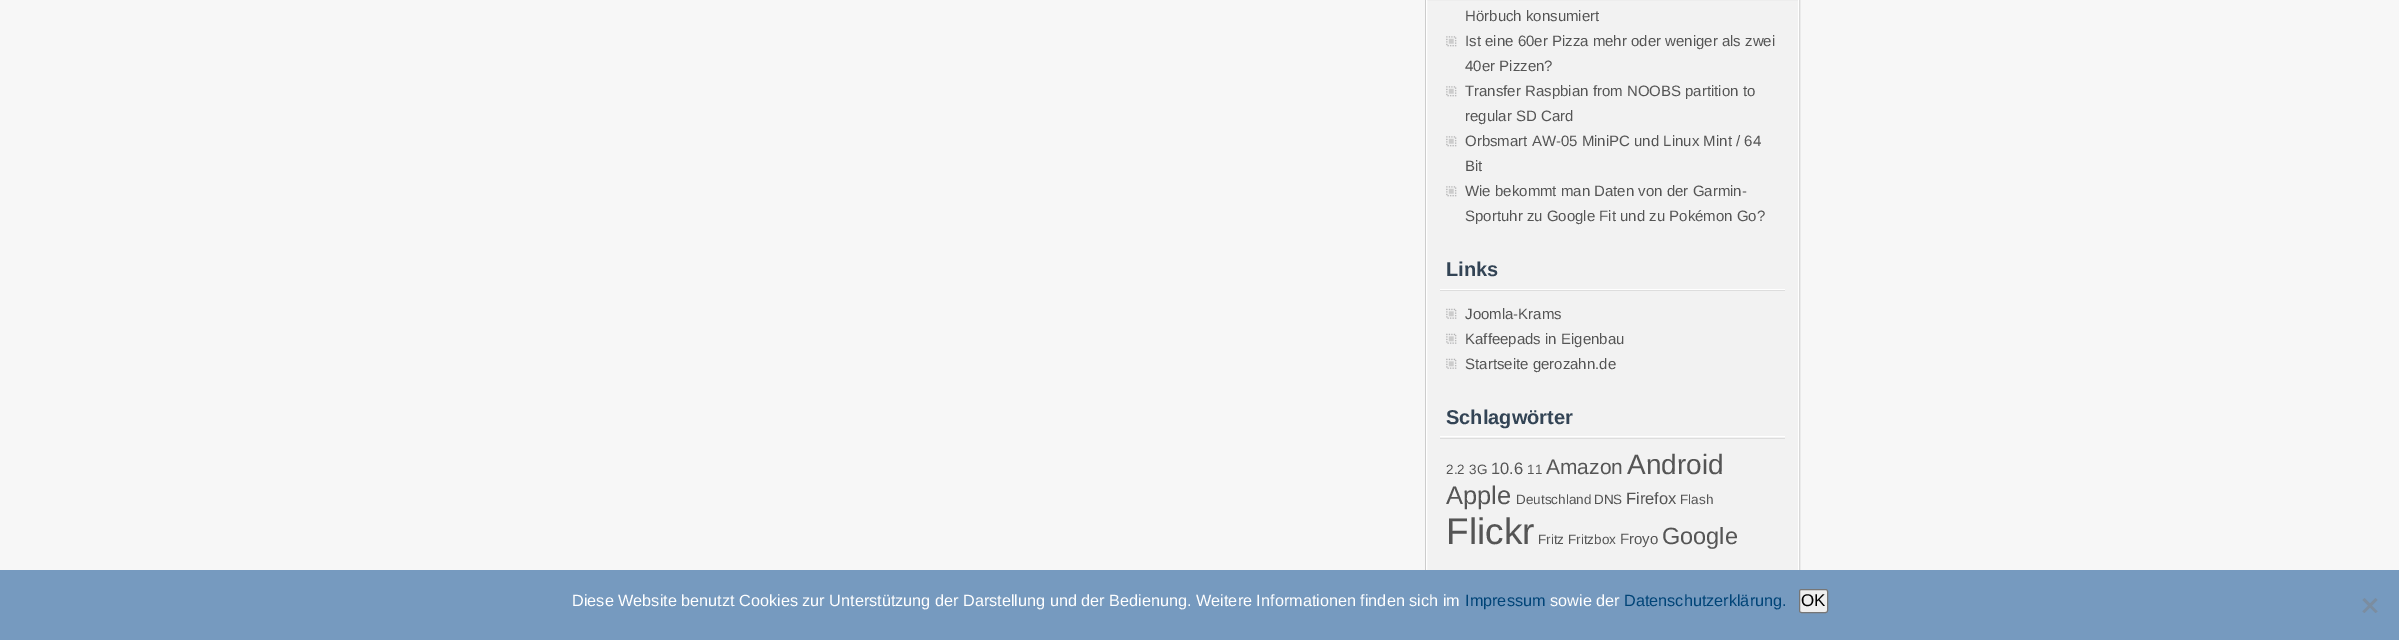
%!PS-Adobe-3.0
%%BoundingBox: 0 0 2399 640
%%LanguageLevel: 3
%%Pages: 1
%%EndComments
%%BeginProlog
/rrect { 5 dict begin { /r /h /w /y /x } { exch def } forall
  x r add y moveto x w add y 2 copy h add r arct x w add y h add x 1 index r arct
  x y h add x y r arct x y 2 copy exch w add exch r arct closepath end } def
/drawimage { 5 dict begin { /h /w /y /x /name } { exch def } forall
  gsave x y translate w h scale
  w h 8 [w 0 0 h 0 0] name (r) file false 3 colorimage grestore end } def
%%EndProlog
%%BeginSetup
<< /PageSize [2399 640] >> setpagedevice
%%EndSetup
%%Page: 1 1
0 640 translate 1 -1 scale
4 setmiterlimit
0.969 setgray
0 0 2399 640 rectfill
0.949 setgray
1427 0 371 570 rectfill
0.8 setgray
1425.5 -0.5 374 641 rectstroke
1 setgray
1426.5 -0.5 372 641 rectstroke
(images/1.raw) 1446 36 11 11 drawimage
(images/1.raw) 1446 86 11 11 drawimage
(images/1.raw) 1446 136 11 11 drawimage
(images/1.raw) 1446 186 11 11 drawimage
1440 289 345 1 rectfill
0.867 setgray
1440 290 345 1 rectfill
(images/2.raw) 1446 308 11 11 drawimage
(images/2.raw) 1446 333 11 11 drawimage
(images/3.raw) 1446 358 11 11 drawimage
1 setgray
1440 436 345 1 rectfill
0.867 setgray
1440 438 345 1 rectfill
0.463 0.604 0.749 setrgbcolor
0 570 2399 70 rectfill
0.937 setgray
1799.5 589.5 28 23 2 rrect gsave fill grestore
0.463 setgray
stroke
0.482 0.553 0.627 setrgbcolor
newpath 2375.5 598 moveto 2377.5 600 lineto 2364.5 613 lineto 2362.5 611.5 lineto closepath fill
newpath 2362.5 600 moveto 2364.5 598 lineto 2377.5 611.5 lineto 2375.5 613 lineto closepath fill
/LiberationSans-Regular [15 0 0 -15 0 0] selectfont
0.333 setgray
1465 21 moveto (Hörbuch konsumiert) show
1465 46 moveto (Ist eine 60er Pizza mehr oder weniger als zwei) show
1465 71 moveto (40er Pizzen?) show
1465 96 moveto (Transfer Raspbian from NOOBS partition to) show
1465 121 moveto (regular SD Card) show
1465 146 moveto (Orbsmart AW-05 MiniPC und Linux Mint / 64) show
1465 171 moveto (Bit) show
1465 196 moveto (Wie bekommt man Daten von der Garmin-) show
1465 221 moveto (Sportuhr zu Google Fit und zu Pokémon Go?) show
/LiberationSans-Bold [20 0 0 -20 0 0] selectfont
0.2 0.267 0.333 setrgbcolor
1446 276 moveto (Links) show
/LiberationSans-Regular [15 0 0 -15 0 0] selectfont
0.333 setgray
1465 319 moveto (Joomla-Krams) show
1465 344 moveto (Kaffeepads in Eigenbau) show
1465 369 moveto (Startseite gerozahn.de) show
/LiberationSans-Bold [20 0 0 -20 0 0] selectfont
0.2 0.267 0.333 setrgbcolor
1446 424 moveto (Schlagwörter) show
/LiberationSans-Regular [13.5 0 0 -13.5 0 0] selectfont
0.333 setgray
1446 474 moveto (2.2) show
1469 474 moveto (3G) show
/LiberationSans-Regular [16.5 0 0 -16.5 0 0] selectfont
1491 474 moveto (10.6) show
/LiberationSans-Regular [13.5 0 0 -13.5 0 0] selectfont
1527 474 moveto (11) show
/LiberationSans-Regular [21 0 0 -21 0 0] selectfont
1546 474 moveto (Amazon) show
/LiberationSans-Regular [28 0 0 -28 0 0] selectfont
1627 474 moveto (Android) show
/LiberationSans-Regular [25.5 0 0 -25.5 0 0] selectfont
1446 504 moveto (Apple) show
/LiberationSans-Regular [13.5 0 0 -13.5 0 0] selectfont
1516 504 moveto (Deutschland) show
1594 504 moveto (DNS) show
/LiberationSans-Regular [16.5 0 0 -16.5 0 0] selectfont
1626 504 moveto (Firefox) show
/LiberationSans-Regular [13.5 0 0 -13.5 0 0] selectfont
1680 504 moveto (Flash) show
/LiberationSans-Regular [37 0 0 -37 0 0] selectfont
1446 544 moveto (Flickr) show
/LiberationSans-Regular [13.5 0 0 -13.5 0 0] selectfont
1538 544 moveto (Fritz) show
1568 544 moveto (Fritzbox) show
/LiberationSans-Regular [15 0 0 -15 0 0] selectfont
1620 544 moveto (Froyo) show
/LiberationSans-Regular [23.5 0 0 -23.5 0 0] selectfont
1662 544 moveto (Google) show
/LiberationSans-Regular [16.25 0 0 -16.25 0 0] selectfont
1 setgray
572 606 moveto (Diese Website benutzt Cookies zur Unterstützung der Darstellung und der Bedienung. Weitere Informationen finden sich im) show
0 0.267 0.467 setrgbcolor
1465 606 moveto (Impressum) show
1 setgray
1550 606 moveto (sowie der) show
0 0.267 0.467 setrgbcolor
1624 606 moveto (Datenschutzerklärung.) show
/LiberationSans-Regular [17 0 0 -17 0 0] selectfont
0 setgray
1801 606 moveto (OK) show
showpage
%%EOF
